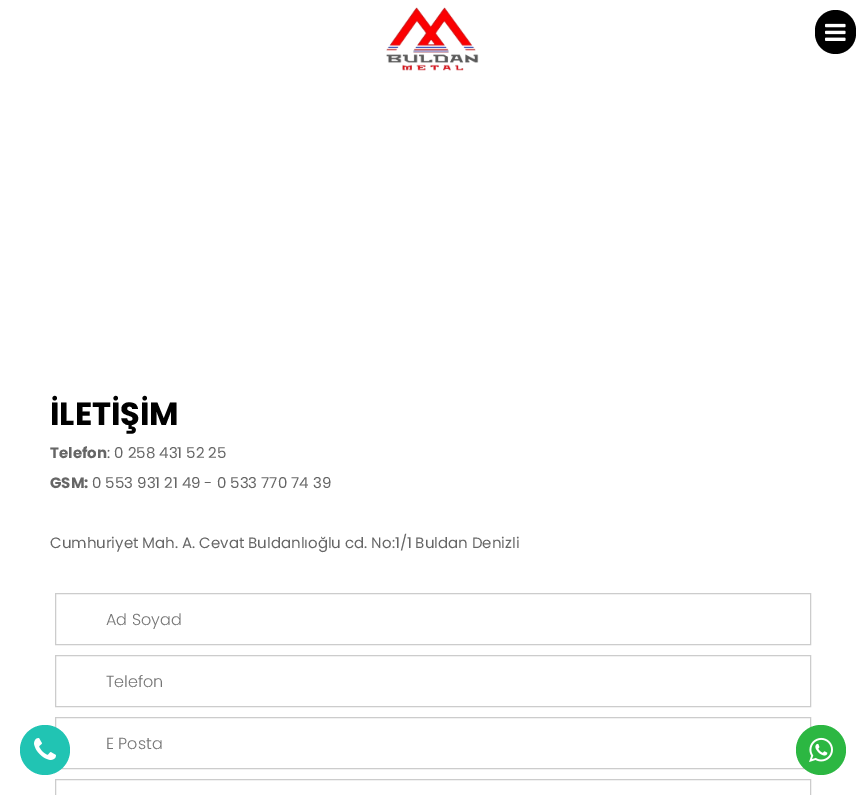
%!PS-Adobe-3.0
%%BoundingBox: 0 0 866 795
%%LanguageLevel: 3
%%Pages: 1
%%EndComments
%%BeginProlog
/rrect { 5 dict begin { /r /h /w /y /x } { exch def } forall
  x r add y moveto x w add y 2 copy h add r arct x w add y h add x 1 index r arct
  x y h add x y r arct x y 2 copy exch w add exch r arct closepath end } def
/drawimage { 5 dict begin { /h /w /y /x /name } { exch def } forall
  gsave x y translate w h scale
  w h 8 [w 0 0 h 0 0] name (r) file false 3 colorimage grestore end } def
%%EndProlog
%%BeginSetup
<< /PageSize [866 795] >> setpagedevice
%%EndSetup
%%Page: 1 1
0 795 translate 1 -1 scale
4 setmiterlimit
1 setgray
0 0 866 795 rectfill
(images/1.raw) 386 7 93 64 drawimage
0 setgray
815 10 41 44 20.5 rrect fill
(images/2.raw) 825 23 21 18 drawimage
0.8 setgray
55.5 717.5 755 51 rectstroke
0.129 0.769 0.702 setrgbcolor
newpath 45 750 25 0 360 arc closepath fill
(images/3.raw) 34 738 22 22 drawimage
0.8 setgray
55.5 593.5 755 51 rectstroke
55.5 655.5 755 51 rectstroke
55.5 779.5 755 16 rectstroke
0.173 0.718 0.259 setrgbcolor
newpath 821 750 25 0 360 arc closepath fill
(images/4.raw) 809 737 24 25 drawimage
/Poppins-Bold [32 0 0 -32 0 0] selectfont
0 setgray
50 425 moveto (İLETİŞİM) show
/Poppins-Bold [15 0 0 -15 0 0] selectfont
0.4 setgray
50 458 moveto (Telefon) show
/Poppins-Regular [15 0 0 -15 0 0] selectfont
107 458 moveto (: 0 258 431 52 25) show
/Poppins-Bold [15 0 0 -15 0 0] selectfont
50 488 moveto (GSM:) show
/Poppins-Regular [15 0 0 -15 0 0] selectfont
92 488 moveto (0 553 931 21 49 - 0 533 770 74 39) show
50 548 moveto (Cumhuriyet Mah. A. Cevat Buldanlıoğlu cd. No:1/1 Buldan Denizli) show
/Poppins-Light [16 0 0 -16 0 0] selectfont
0.459 setgray
106 625 moveto (Ad Soyad) show
106 687 moveto (Telefon) show
106 749 moveto (E Posta) show
showpage
%%EOF
